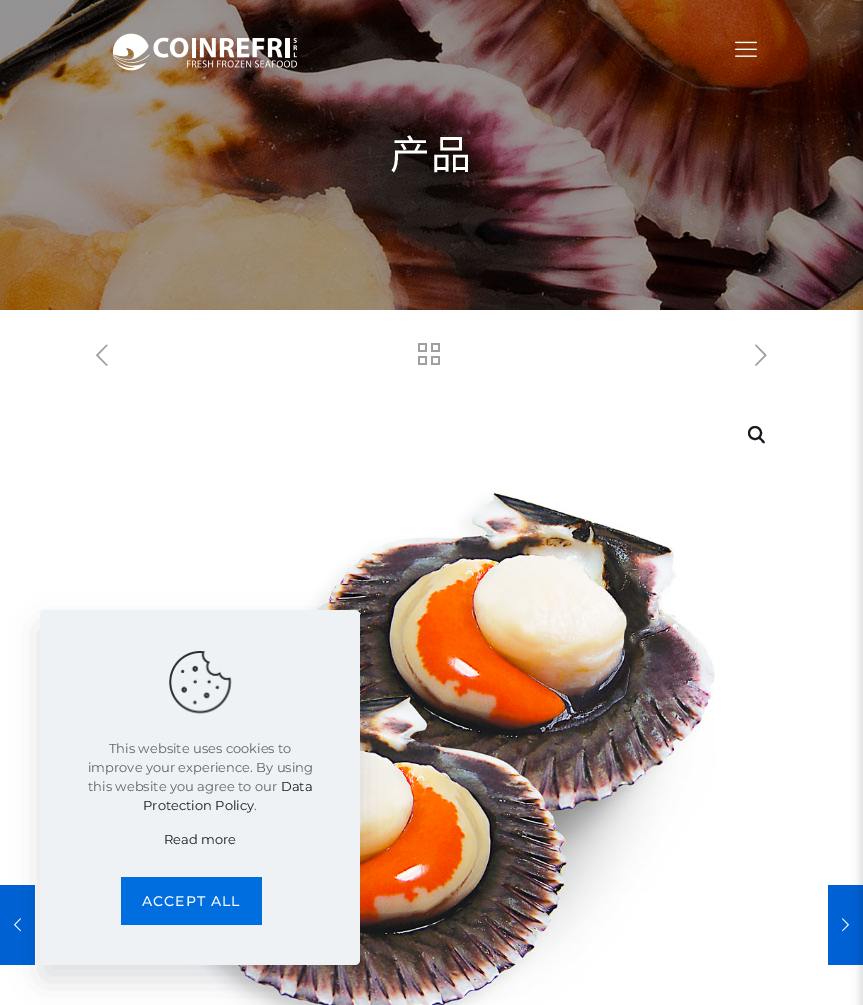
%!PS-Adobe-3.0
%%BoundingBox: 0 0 863 1005
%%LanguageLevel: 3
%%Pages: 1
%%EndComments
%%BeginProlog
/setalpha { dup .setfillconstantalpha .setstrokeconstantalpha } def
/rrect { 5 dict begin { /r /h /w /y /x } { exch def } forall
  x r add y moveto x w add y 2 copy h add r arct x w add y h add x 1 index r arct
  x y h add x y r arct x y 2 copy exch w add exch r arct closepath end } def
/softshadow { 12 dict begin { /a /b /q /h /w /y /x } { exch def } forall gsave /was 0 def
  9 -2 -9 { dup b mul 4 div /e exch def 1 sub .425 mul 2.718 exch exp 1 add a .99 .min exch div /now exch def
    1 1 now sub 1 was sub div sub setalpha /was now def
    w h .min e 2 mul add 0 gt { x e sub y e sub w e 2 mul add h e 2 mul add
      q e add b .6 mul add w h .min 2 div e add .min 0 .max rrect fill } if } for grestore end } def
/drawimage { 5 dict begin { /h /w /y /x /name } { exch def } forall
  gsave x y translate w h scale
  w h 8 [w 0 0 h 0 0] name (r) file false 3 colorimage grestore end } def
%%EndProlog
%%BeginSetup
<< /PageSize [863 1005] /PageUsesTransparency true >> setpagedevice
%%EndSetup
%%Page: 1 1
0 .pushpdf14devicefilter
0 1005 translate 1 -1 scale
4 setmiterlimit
1 setgray
0 0 863 1005 rectfill
(images/3.raw) 0 0 863 310 drawimage
(images/1.raw) 112 33 185 38 drawimage
(images/2.raw) 735 41 22 16 drawimage
(images/4.raw) 96 344 12 22 drawimage
(images/5.raw) 418 343 22 22 drawimage
(images/6.raw) 755 344 12 22 drawimage
0.086 0.098 0.133 setrgbcolor
2 setlinewidth
newpath 755 433 6 0 360 arc closepath stroke
newpath 758.5 437 moveto 760 436 761.5 438.5 762.5 439.5 curveto 763 440 765.5 441.5 764.5 443 curveto 763 444 761.5 441.5 761 440.5 curveto 760.5 440 757.5 438.5 758.5 437 curveto closepath fill
(images/7.raw) 149 491 566 514 drawimage
0 0.38 0.831 setrgbcolor
828 885 35 80 rectfill
(images/10.raw) 842 918 7 14 drawimage
0 setgray
862 -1 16 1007 0 5 0.2 softshadow
0 0.38 0.831 setrgbcolor
0 885 35 80 rectfill
(images/9.raw) 14 918 7 14 drawimage
0.004 0.027 0.153 setrgbcolor
40 625 320 355 5 15 0.13 softshadow
0.933 0.949 0.961 setrgbcolor
40 610 320 355 5 rrect fill
(images/8.raw) 169 651 63 63 drawimage
0 0.431 0.875 setrgbcolor
121 877 141 48 rectfill
/NotoSansCJKSC-Regular [40 0 0 -40 0 0] selectfont
1 setgray
390 169 moveto 1 0 (产品) ashow
/Montserrat-Regular [13 0 0 -13 0 0] selectfont
0.384 setgray
109 753 moveto (This website uses cookies to) show
88 772 moveto (improve your experience. By using) show
88 791 moveto (this website you agree to our) show
0.086 0.098 0.133 setrgbcolor
281 791 moveto (Data) show
143 810 moveto (Protection Policy) show
0.384 setgray
254 810 moveto (.) show
0.086 0.098 0.133 setrgbcolor
164 844 moveto (Read more) show
/Montserrat-Medium [14 0 0 -14 0 0] selectfont
1 setgray
142 906 moveto 1 0 (ACCEPT ALL) ashow
.poppdf14devicefilter showpage
%%EOF
